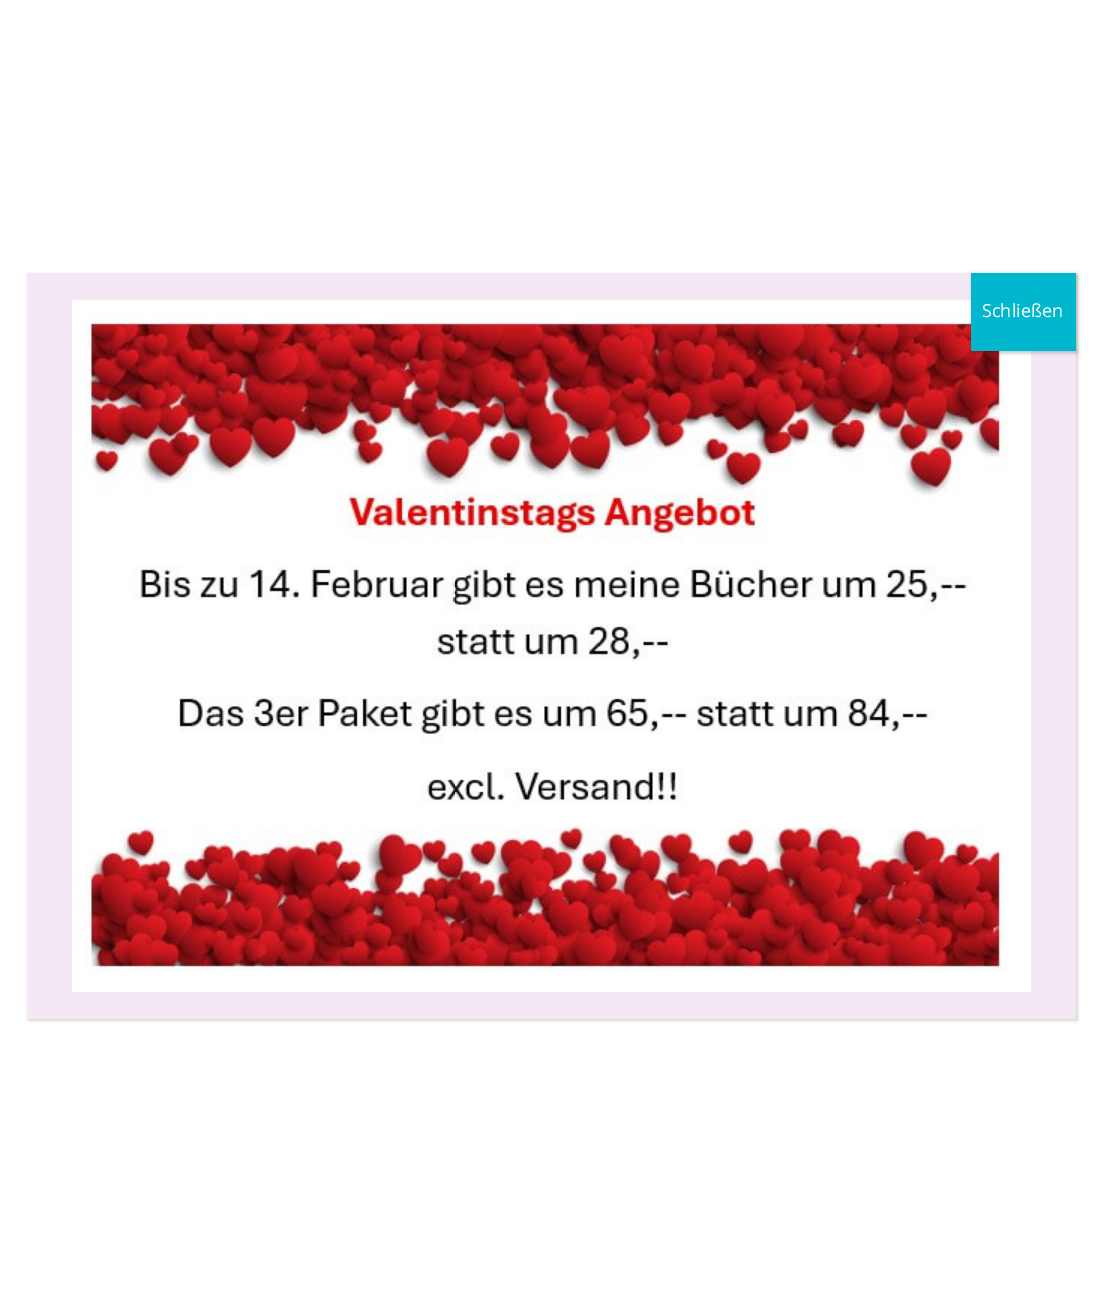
%!PS-Adobe-3.0
%%BoundingBox: 0 0 1102 1289
%%LanguageLevel: 3
%%Pages: 1
%%EndComments
%%BeginProlog
/setalpha { dup .setfillconstantalpha .setstrokeconstantalpha } def
/rrect { 5 dict begin { /r /h /w /y /x } { exch def } forall
  x r add y moveto x w add y 2 copy h add r arct x w add y h add x 1 index r arct
  x y h add x y r arct x y 2 copy exch w add exch r arct closepath end } def
/softshadow { 12 dict begin { /a /b /q /h /w /y /x } { exch def } forall gsave /was 0 def
  9 -2 -9 { dup b mul 4 div /e exch def 1 sub .425 mul 2.718 exch exp 1 add a .99 .min exch div /now exch def
    1 1 now sub 1 was sub div sub setalpha /was now def
    w h .min e 2 mul add 0 gt { x e sub y e sub w e 2 mul add h e 2 mul add
      q e add b .6 mul add w h .min 2 div e add .min 0 .max rrect fill } if } for grestore end } def
/drawimage { 5 dict begin { /h /w /y /x /name } { exch def } forall
  gsave x y translate w h scale
  w h 8 [w 0 0 h 0 0] name (r) file false 3 colorimage grestore end } def
%%EndProlog
%%BeginSetup
<< /PageSize [1102 1289] /PageUsesTransparency true >> setpagedevice
%%EndSetup
%%Page: 1 1
0 .pushpdf14devicefilter
0 1289 translate 1 -1 scale
4 setmiterlimit
1 setgray
0 0 1102 1289 rectfill
0.008 setgray
29 275 1048 745 0 2 0.23 softshadow
0.957 0.91 0.957 setrgbcolor
27 273 1049 746 rectfill
(images/1.raw) 72 300 959 692 drawimage
0.008 setgray
972 275 105 78 0 2 0.23 softshadow
0 0.718 0.804 setrgbcolor
971 273 105 78 rectfill
/OpenSans-Regular [18 0 0 -18 0 0] selectfont
1 setgray
982 317 moveto (Schließen) show
.poppdf14devicefilter showpage
%%EOF
